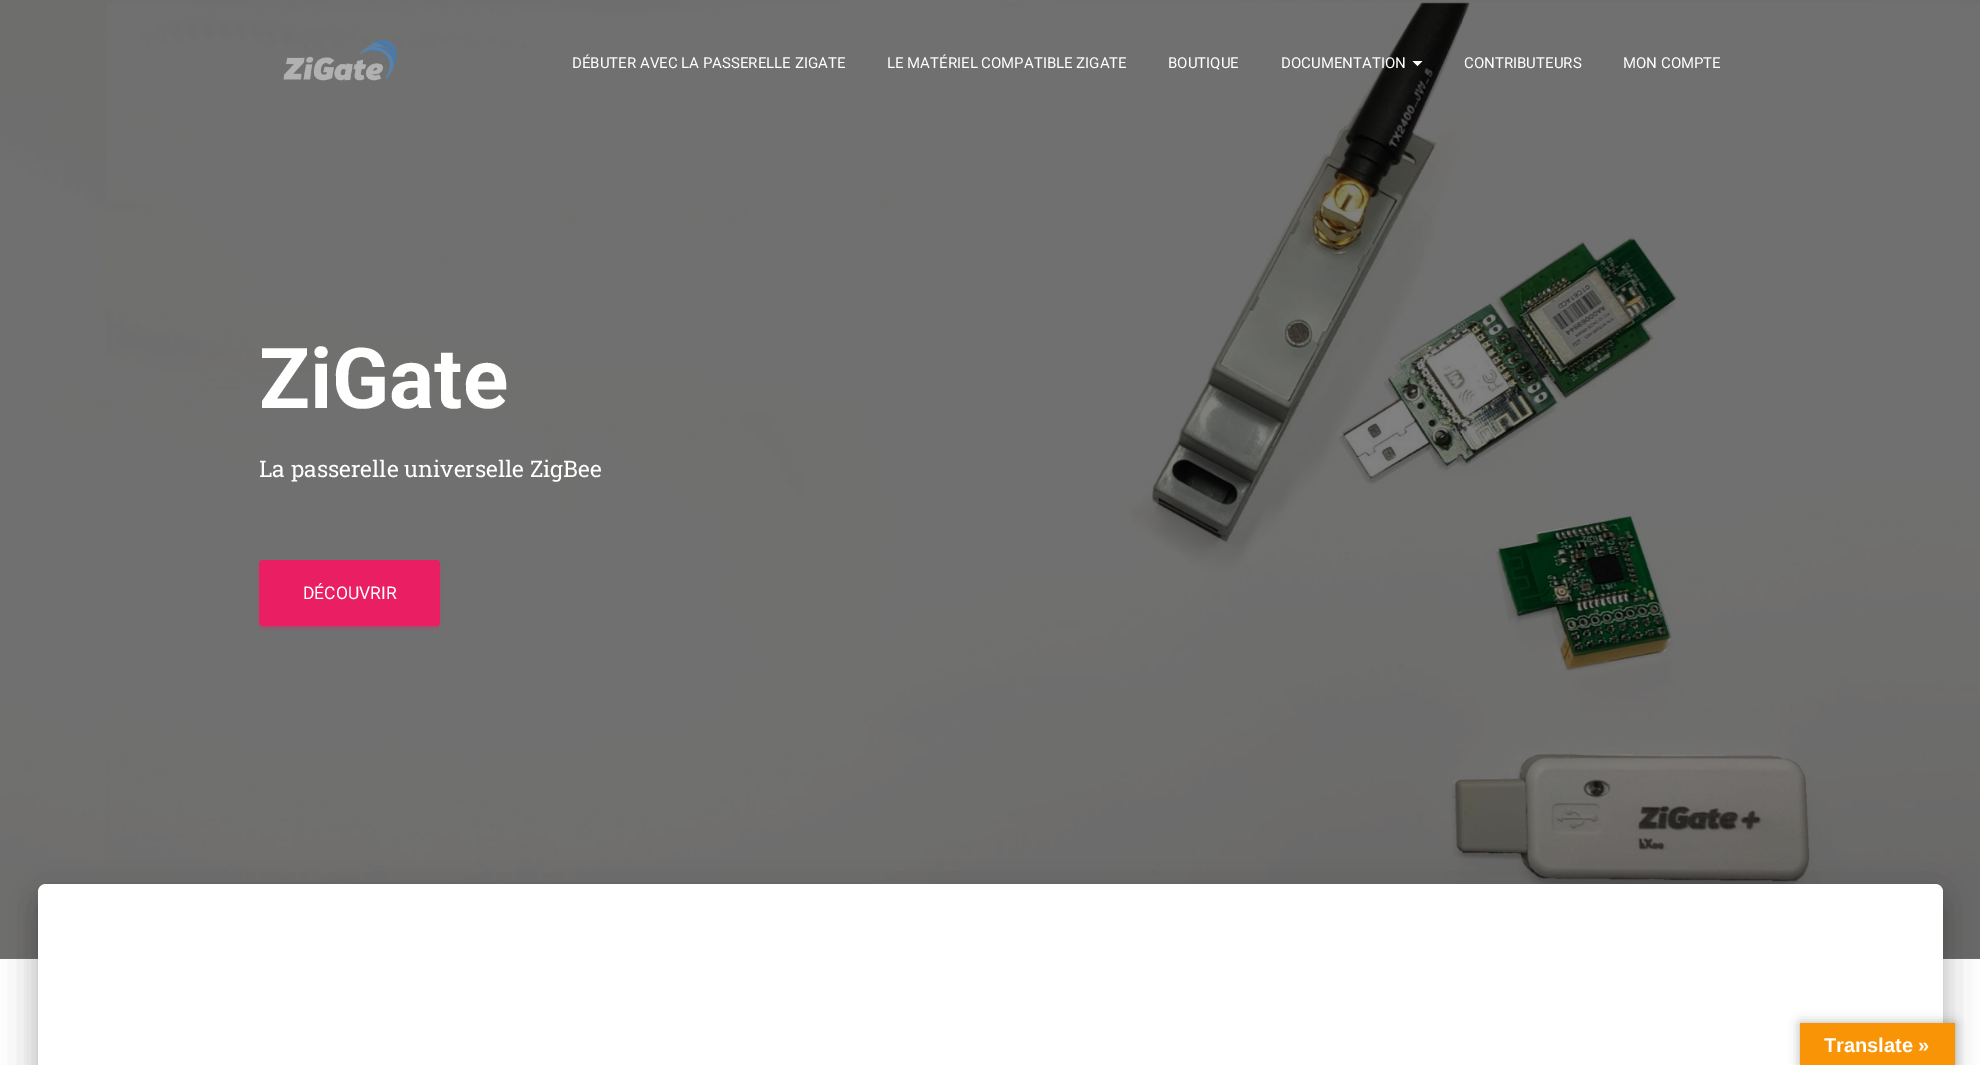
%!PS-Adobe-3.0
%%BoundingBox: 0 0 1980 1065
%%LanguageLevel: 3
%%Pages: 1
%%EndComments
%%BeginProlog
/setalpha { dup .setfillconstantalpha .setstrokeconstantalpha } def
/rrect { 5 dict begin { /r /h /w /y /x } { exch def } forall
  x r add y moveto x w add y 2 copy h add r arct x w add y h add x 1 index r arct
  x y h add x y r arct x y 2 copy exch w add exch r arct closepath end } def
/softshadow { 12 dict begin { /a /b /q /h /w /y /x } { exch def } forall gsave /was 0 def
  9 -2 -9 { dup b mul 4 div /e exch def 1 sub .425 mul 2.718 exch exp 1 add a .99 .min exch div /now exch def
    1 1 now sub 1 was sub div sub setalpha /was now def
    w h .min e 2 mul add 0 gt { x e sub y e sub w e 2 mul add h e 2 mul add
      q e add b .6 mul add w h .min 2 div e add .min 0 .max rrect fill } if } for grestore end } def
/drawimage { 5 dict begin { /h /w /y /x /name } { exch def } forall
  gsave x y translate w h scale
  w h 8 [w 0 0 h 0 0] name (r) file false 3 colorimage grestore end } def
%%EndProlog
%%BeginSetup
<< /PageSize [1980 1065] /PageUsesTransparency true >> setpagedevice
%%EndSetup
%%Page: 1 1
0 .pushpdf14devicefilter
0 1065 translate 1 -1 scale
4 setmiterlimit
1 setgray
0 0 1980 1065 rectfill
(images/2.raw) 0 0 1980 959 drawimage
(images/1.raw) 283 40 114 41 drawimage
newpath 1412.5 61 moveto 1422.5 61 lineto 1417.5 66 lineto closepath fill
0.914 0.118 0.388 setrgbcolor
259 561 181 67 4 3 0.12 softshadow
261 566 177 62 1 0.5 0.2 softshadow
259 563 181 66 4 1 0.14 softshadow
259 560 181 66 4 rrect fill
0 setgray
44 900 1892 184 1 6 0.2 softshadow
31 885 1918 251 14 19 0.12 softshadow
35 901 1910 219 10 15 0.14 softshadow
1 setgray
newpath 46 884 moveto 1935 884 lineto 1939.5 884 1943 887.5 1943 892 curveto 1943 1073 lineto 38 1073 lineto 38 892 lineto 38 887.5 41.5 884 46 884 curveto closepath fill
0 setgray
1800 1023 155 42 0 5.5 0.3 softshadow
0.973 0.58 0.024 setrgbcolor
1800 1023 155 42 rectfill
/Roboto-Regular [15 0 0 -15 0 0] selectfont
1 setgray
572 68 moveto (DÉBUTER AVEC LA PASSERELLE ZIGATE) show
887 68 moveto (LE MATÉRIEL COMPATIBLE ZIGATE) show
1168 68 moveto (BOUTIQUE) show
1281 68 moveto (DOCUMENTATION) show
1464 68 moveto (CONTRIBUTEURS) show
1623 68 moveto (MON COMPTE) show
/Roboto-Bold [84 0 0 -84 0 0] selectfont
259 408 moveto (ZiGate) show
/RobotoSlab-Regular [22.75 0 0 -22.75 0 0] selectfont
259 477 moveto (La passerelle universelle ZigBee) show
/Roboto-Regular [17.5 0 0 -17.5 0 0] selectfont
303 599 moveto (DÉCOUVRIR) show
/LiberationSans-Bold [20 0 0 -20 0 0] selectfont
1824 1052 moveto (Translate ») show
.poppdf14devicefilter showpage
%%EOF
